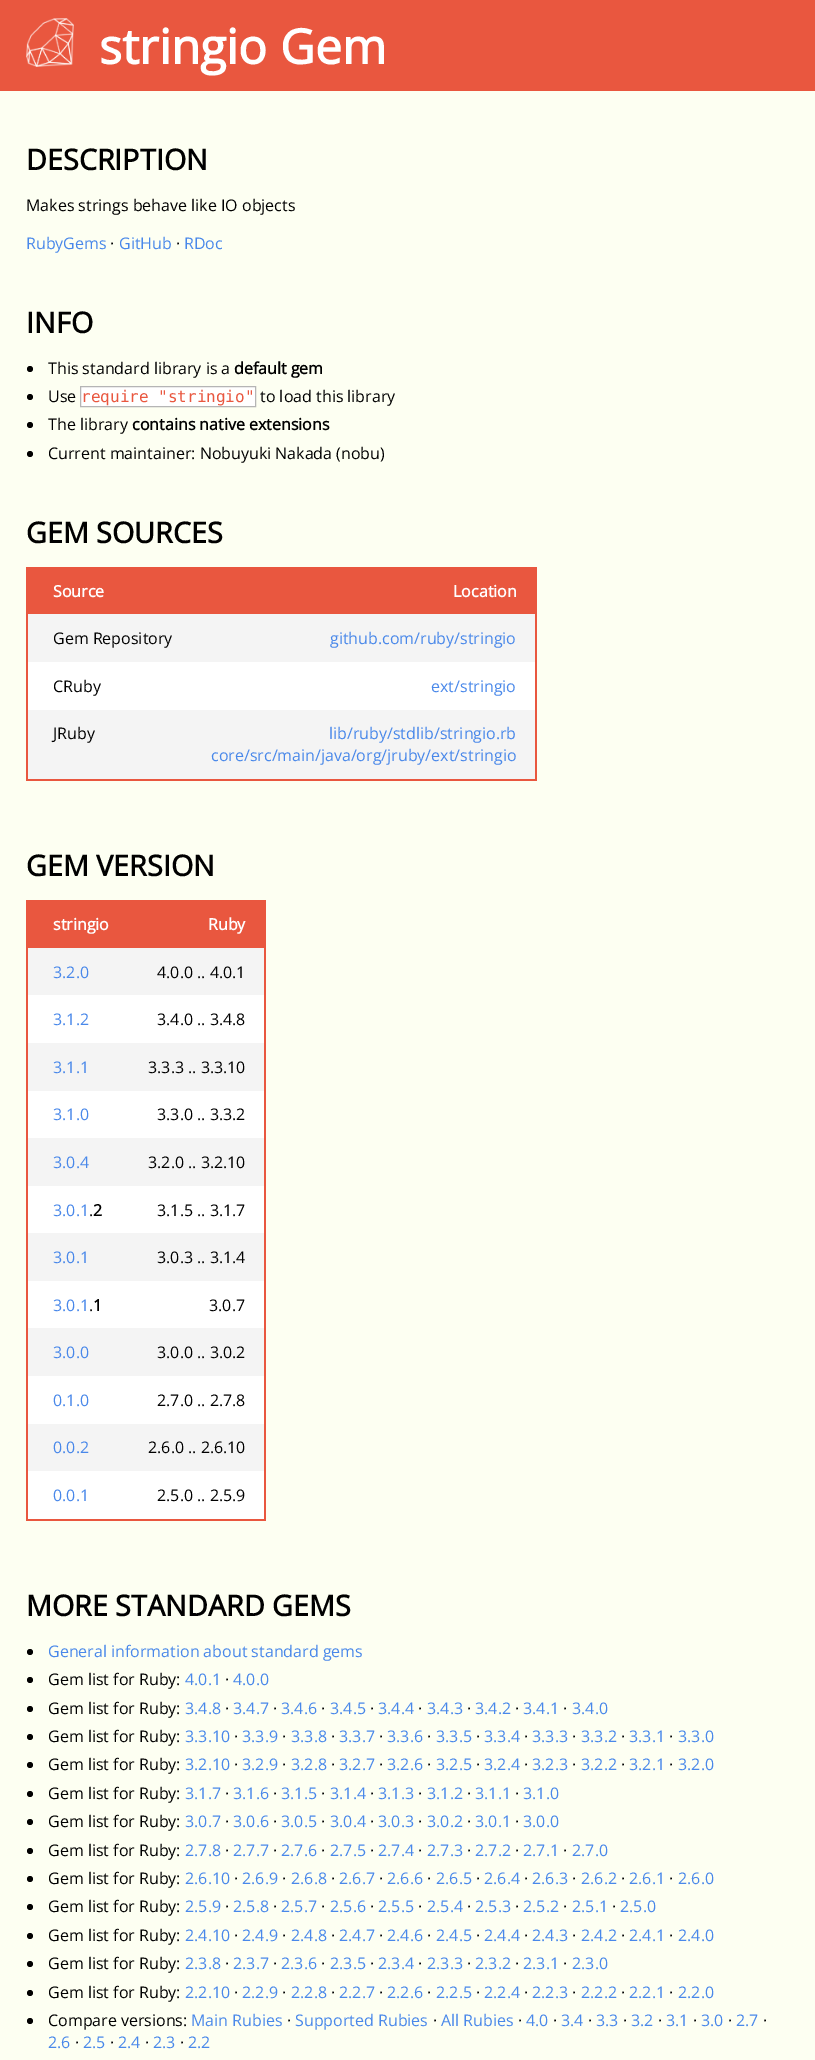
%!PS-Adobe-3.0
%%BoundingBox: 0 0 815 2060
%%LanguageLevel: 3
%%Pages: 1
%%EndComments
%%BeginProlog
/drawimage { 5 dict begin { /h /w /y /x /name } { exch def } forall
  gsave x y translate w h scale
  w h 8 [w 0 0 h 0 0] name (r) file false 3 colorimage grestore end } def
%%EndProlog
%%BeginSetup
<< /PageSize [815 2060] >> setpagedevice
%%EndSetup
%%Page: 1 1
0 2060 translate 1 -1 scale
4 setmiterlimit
0.992 1 0.949 setrgbcolor
0 0 815 2060 rectfill
0.914 0.341 0.247 setrgbcolor
0 0 815 91 rectfill
(images/1.raw) 26 18 48 49 drawimage
0 setgray
newpath 30 369 3 0 360 arc closepath fill
newpath 30 397 3 0 360 arc closepath fill
1 setgray
newpath 80.5 386.5 moveto 255.5 386.5 lineto 255.5 406.5 lineto 80.5 406.5 lineto closepath gsave fill grestore
0.71 setgray
stroke
0 setgray
newpath 30 425 3 0 360 arc closepath fill
newpath 30 454 3 0 360 arc closepath fill
0.914 0.341 0.247 setrgbcolor
535 567 2 214 rectfill
26 779 511 2 rectfill
26 567 2 214 rectfill
28 567 507 47 rectfill
0.957 setgray
28 614 507 48 rectfill
1 setgray
28 662 507 48 rectfill
0.957 setgray
28 710 507 69 rectfill
0.914 0.341 0.247 setrgbcolor
264 900 2 621 rectfill
26 1519 240 2 rectfill
26 900 2 621 rectfill
28 900 236 48 rectfill
0.957 setgray
28 948 236 47 rectfill
1 setgray
28 995 236 48 rectfill
0.957 setgray
28 1043 236 48 rectfill
1 setgray
28 1091 236 47 rectfill
0.957 setgray
28 1138 236 48 rectfill
1 setgray
28 1186 236 47 rectfill
0.957 setgray
28 1233 236 48 rectfill
1 setgray
28 1281 236 47 rectfill
0.957 setgray
28 1328 236 48 rectfill
1 setgray
28 1376 236 48 rectfill
0.957 setgray
28 1424 236 47 rectfill
1 setgray
28 1471 236 48 rectfill
0 setgray
newpath 30 1652 3 0 360 arc closepath fill
newpath 30 1680 3 0 360 arc closepath fill
newpath 30 1709 3 0 360 arc closepath fill
newpath 30 1737 3 0 360 arc closepath fill
newpath 30 1765 3 0 360 arc closepath fill
newpath 30 1794 3 0 360 arc closepath fill
newpath 30 1822 3 0 360 arc closepath fill
newpath 30 1851 3 0 360 arc closepath fill
newpath 30 1879 3 0 360 arc closepath fill
newpath 30 1907 3 0 360 arc closepath fill
newpath 30 1936 3 0 360 arc closepath fill
newpath 30 1964 3 0 360 arc closepath fill
newpath 30 1993 3 0 360 arc closepath fill
newpath 30 2021 3 0 360 arc closepath fill
/OpenSans-Bold [48 0 0 -48 0 0] selectfont
1 setgray
99 64 moveto (stringio Gem) show
/OpenSans-Bold [28.75 0 0 -28.75 0 0] selectfont
0 setgray
26 170 moveto (DESCRIPTION) show
/OpenSans-Regular [16 0 0 -16 0 0] selectfont
26 211 moveto (Makes strings behave like IO objects) show
0.286 0.533 0.918 setrgbcolor
26 249 moveto (RubyGems) show
0 setgray
110 249 moveto (·) show
0.286 0.533 0.918 setrgbcolor
119 249 moveto (GitHub) show
0 setgray
176 249 moveto (·) show
0.286 0.533 0.918 setrgbcolor
184 249 moveto (RDoc) show
/OpenSans-Bold [28.75 0 0 -28.75 0 0] selectfont
0 setgray
26 333 moveto (INFO) show
/OpenSans-Regular [16 0 0 -16 0 0] selectfont
48 374 moveto (This standard library is a) show
/OpenSans-Bold [16 0 0 -16 0 0] selectfont
234 374 moveto (default gem) show
/OpenSans-Regular [16 0 0 -16 0 0] selectfont
48 402 moveto (Use) show
/DejaVuSansMono-Regular [16 0 0 -16 0 0] selectfont
0.914 0.341 0.247 setrgbcolor
81 402 moveto (require "stringio") show
/OpenSans-Regular [16 0 0 -16 0 0] selectfont
0 setgray
260 402 moveto (to load this library) show
48 430 moveto (The library) show
/OpenSans-Bold [16 0 0 -16 0 0] selectfont
132 430 moveto (contains native extensions) show
/OpenSans-Regular [16 0 0 -16 0 0] selectfont
48 459 moveto (Current maintainer: Nobuyuki Nakada \(nobu\)) show
/OpenSans-Bold [28.75 0 0 -28.75 0 0] selectfont
26 543 moveto (GEM SOURCES) show
/OpenSans-Bold [16 0 0 -16 0 0] selectfont
1 setgray
53 597 moveto (Source) show
453 597 moveto (Location) show
/OpenSans-Regular [16 0 0 -16 0 0] selectfont
0 setgray
53 644 moveto (Gem Repository) show
0.286 0.533 0.918 setrgbcolor
330 644 moveto (github.com/ruby/stringio) show
0 setgray
53 692 moveto (CRuby) show
0.286 0.533 0.918 setrgbcolor
431 692 moveto (ext/stringio) show
0 setgray
53 739 moveto (JRuby) show
0.286 0.533 0.918 setrgbcolor
329 739 moveto (lib/ruby/stdlib/stringio.rb) show
211 761 moveto (core/src/main/java/org/jruby/ext/stringio) show
/OpenSans-Bold [28.75 0 0 -28.75 0 0] selectfont
0 setgray
26 876 moveto (GEM VERSION) show
/OpenSans-Bold [16 0 0 -16 0 0] selectfont
1 setgray
53 930 moveto (stringio) show
208 930 moveto (Ruby) show
/OpenSans-Regular [16 0 0 -16 0 0] selectfont
0.286 0.533 0.918 setrgbcolor
53 978 moveto (3.2.0) show
0 setgray
157 978 moveto (4.0.0 .. 4.0.1) show
0.286 0.533 0.918 setrgbcolor
53 1025 moveto (3.1.2) show
0 setgray
157 1025 moveto (3.4.0 .. 3.4.8) show
0.286 0.533 0.918 setrgbcolor
53 1073 moveto (3.1.1) show
0 setgray
148 1073 moveto (3.3.3 .. 3.3.10) show
0.286 0.533 0.918 setrgbcolor
53 1120 moveto (3.1.0) show
0 setgray
157 1120 moveto (3.3.0 .. 3.3.2) show
0.286 0.533 0.918 setrgbcolor
53 1168 moveto (3.0.4) show
0 setgray
148 1168 moveto (3.2.0 .. 3.2.10) show
0.286 0.533 0.918 setrgbcolor
53 1216 moveto (3.0.1) show
0 setgray
89 1216 moveto (.) show
/OpenSans-Bold [16 0 0 -16 0 0] selectfont
93 1216 moveto (2) show
/OpenSans-Regular [16 0 0 -16 0 0] selectfont
157 1216 moveto (3.1.5 .. 3.1.7) show
0.286 0.533 0.918 setrgbcolor
53 1263 moveto (3.0.1) show
0 setgray
157 1263 moveto (3.0.3 .. 3.1.4) show
0.286 0.533 0.918 setrgbcolor
53 1311 moveto (3.0.1) show
0 setgray
89 1311 moveto (.) show
/OpenSans-Bold [16 0 0 -16 0 0] selectfont
93 1311 moveto (1) show
/OpenSans-Regular [16 0 0 -16 0 0] selectfont
209 1311 moveto (3.0.7) show
0.286 0.533 0.918 setrgbcolor
53 1358 moveto (3.0.0) show
0 setgray
157 1358 moveto (3.0.0 .. 3.0.2) show
0.286 0.533 0.918 setrgbcolor
53 1406 moveto (0.1.0) show
0 setgray
157 1406 moveto (2.7.0 .. 2.7.8) show
0.286 0.533 0.918 setrgbcolor
53 1453 moveto (0.0.2) show
0 setgray
148 1453 moveto (2.6.0 .. 2.6.10) show
0.286 0.533 0.918 setrgbcolor
53 1501 moveto (0.0.1) show
0 setgray
157 1501 moveto (2.5.0 .. 2.5.9) show
/OpenSans-Bold [28.75 0 0 -28.75 0 0] selectfont
26 1616 moveto (MORE STANDARD GEMS) show
/OpenSans-Regular [16 0 0 -16 0 0] selectfont
0.286 0.533 0.918 setrgbcolor
48 1657 moveto (General information about standard gems) show
0 setgray
48 1685 moveto (Gem list for Ruby:) show
0.286 0.533 0.918 setrgbcolor
185 1685 moveto (4.0.1) show
0 setgray
225 1685 moveto (·) show
0.286 0.533 0.918 setrgbcolor
233 1685 moveto (4.0.0) show
0 setgray
48 1714 moveto (Gem list for Ruby:) show
0.286 0.533 0.918 setrgbcolor
185 1714 moveto (3.4.8) show
0 setgray
225 1714 moveto (·) show
0.286 0.533 0.918 setrgbcolor
233 1714 moveto (3.4.7) show
0 setgray
273 1714 moveto (·) show
0.286 0.533 0.918 setrgbcolor
281 1714 moveto (3.4.6) show
0 setgray
321 1714 moveto (·) show
0.286 0.533 0.918 setrgbcolor
330 1714 moveto (3.4.5) show
0 setgray
370 1714 moveto (·) show
0.286 0.533 0.918 setrgbcolor
378 1714 moveto (3.4.4) show
0 setgray
418 1714 moveto (·) show
0.286 0.533 0.918 setrgbcolor
427 1714 moveto (3.4.3) show
0 setgray
467 1714 moveto (·) show
0.286 0.533 0.918 setrgbcolor
475 1714 moveto (3.4.2) show
0 setgray
515 1714 moveto (·) show
0.286 0.533 0.918 setrgbcolor
523 1714 moveto (3.4.1) show
0 setgray
563 1714 moveto (·) show
0.286 0.533 0.918 setrgbcolor
572 1714 moveto (3.4.0) show
0 setgray
48 1742 moveto (Gem list for Ruby:) show
0.286 0.533 0.918 setrgbcolor
185 1742 moveto (3.3.10) show
0 setgray
234 1742 moveto (·) show
0.286 0.533 0.918 setrgbcolor
242 1742 moveto (3.3.9) show
0 setgray
282 1742 moveto (·) show
0.286 0.533 0.918 setrgbcolor
291 1742 moveto (3.3.8) show
0 setgray
331 1742 moveto (·) show
0.286 0.533 0.918 setrgbcolor
339 1742 moveto (3.3.7) show
0 setgray
379 1742 moveto (·) show
0.286 0.533 0.918 setrgbcolor
387 1742 moveto (3.3.6) show
0 setgray
427 1742 moveto (·) show
0.286 0.533 0.918 setrgbcolor
436 1742 moveto (3.3.5) show
0 setgray
476 1742 moveto (·) show
0.286 0.533 0.918 setrgbcolor
484 1742 moveto (3.3.4) show
0 setgray
524 1742 moveto (·) show
0.286 0.533 0.918 setrgbcolor
532 1742 moveto (3.3.3) show
0 setgray
572 1742 moveto (·) show
0.286 0.533 0.918 setrgbcolor
581 1742 moveto (3.3.2) show
0 setgray
621 1742 moveto (·) show
0.286 0.533 0.918 setrgbcolor
629 1742 moveto (3.3.1) show
0 setgray
669 1742 moveto (·) show
0.286 0.533 0.918 setrgbcolor
678 1742 moveto (3.3.0) show
0 setgray
48 1770 moveto (Gem list for Ruby:) show
0.286 0.533 0.918 setrgbcolor
185 1770 moveto (3.2.10) show
0 setgray
234 1770 moveto (·) show
0.286 0.533 0.918 setrgbcolor
242 1770 moveto (3.2.9) show
0 setgray
282 1770 moveto (·) show
0.286 0.533 0.918 setrgbcolor
291 1770 moveto (3.2.8) show
0 setgray
331 1770 moveto (·) show
0.286 0.533 0.918 setrgbcolor
339 1770 moveto (3.2.7) show
0 setgray
379 1770 moveto (·) show
0.286 0.533 0.918 setrgbcolor
387 1770 moveto (3.2.6) show
0 setgray
427 1770 moveto (·) show
0.286 0.533 0.918 setrgbcolor
436 1770 moveto (3.2.5) show
0 setgray
476 1770 moveto (·) show
0.286 0.533 0.918 setrgbcolor
484 1770 moveto (3.2.4) show
0 setgray
524 1770 moveto (·) show
0.286 0.533 0.918 setrgbcolor
532 1770 moveto (3.2.3) show
0 setgray
572 1770 moveto (·) show
0.286 0.533 0.918 setrgbcolor
581 1770 moveto (3.2.2) show
0 setgray
621 1770 moveto (·) show
0.286 0.533 0.918 setrgbcolor
629 1770 moveto (3.2.1) show
0 setgray
669 1770 moveto (·) show
0.286 0.533 0.918 setrgbcolor
678 1770 moveto (3.2.0) show
0 setgray
48 1799 moveto (Gem list for Ruby:) show
0.286 0.533 0.918 setrgbcolor
185 1799 moveto (3.1.7) show
0 setgray
225 1799 moveto (·) show
0.286 0.533 0.918 setrgbcolor
233 1799 moveto (3.1.6) show
0 setgray
273 1799 moveto (·) show
0.286 0.533 0.918 setrgbcolor
281 1799 moveto (3.1.5) show
0 setgray
321 1799 moveto (·) show
0.286 0.533 0.918 setrgbcolor
330 1799 moveto (3.1.4) show
0 setgray
370 1799 moveto (·) show
0.286 0.533 0.918 setrgbcolor
378 1799 moveto (3.1.3) show
0 setgray
418 1799 moveto (·) show
0.286 0.533 0.918 setrgbcolor
427 1799 moveto (3.1.2) show
0 setgray
467 1799 moveto (·) show
0.286 0.533 0.918 setrgbcolor
475 1799 moveto (3.1.1) show
0 setgray
515 1799 moveto (·) show
0.286 0.533 0.918 setrgbcolor
523 1799 moveto (3.1.0) show
0 setgray
48 1827 moveto (Gem list for Ruby:) show
0.286 0.533 0.918 setrgbcolor
185 1827 moveto (3.0.7) show
0 setgray
225 1827 moveto (·) show
0.286 0.533 0.918 setrgbcolor
233 1827 moveto (3.0.6) show
0 setgray
273 1827 moveto (·) show
0.286 0.533 0.918 setrgbcolor
281 1827 moveto (3.0.5) show
0 setgray
321 1827 moveto (·) show
0.286 0.533 0.918 setrgbcolor
330 1827 moveto (3.0.4) show
0 setgray
370 1827 moveto (·) show
0.286 0.533 0.918 setrgbcolor
378 1827 moveto (3.0.3) show
0 setgray
418 1827 moveto (·) show
0.286 0.533 0.918 setrgbcolor
427 1827 moveto (3.0.2) show
0 setgray
467 1827 moveto (·) show
0.286 0.533 0.918 setrgbcolor
475 1827 moveto (3.0.1) show
0 setgray
515 1827 moveto (·) show
0.286 0.533 0.918 setrgbcolor
523 1827 moveto (3.0.0) show
0 setgray
48 1856 moveto (Gem list for Ruby:) show
0.286 0.533 0.918 setrgbcolor
185 1856 moveto (2.7.8) show
0 setgray
225 1856 moveto (·) show
0.286 0.533 0.918 setrgbcolor
233 1856 moveto (2.7.7) show
0 setgray
273 1856 moveto (·) show
0.286 0.533 0.918 setrgbcolor
281 1856 moveto (2.7.6) show
0 setgray
321 1856 moveto (·) show
0.286 0.533 0.918 setrgbcolor
330 1856 moveto (2.7.5) show
0 setgray
370 1856 moveto (·) show
0.286 0.533 0.918 setrgbcolor
378 1856 moveto (2.7.4) show
0 setgray
418 1856 moveto (·) show
0.286 0.533 0.918 setrgbcolor
427 1856 moveto (2.7.3) show
0 setgray
467 1856 moveto (·) show
0.286 0.533 0.918 setrgbcolor
475 1856 moveto (2.7.2) show
0 setgray
515 1856 moveto (·) show
0.286 0.533 0.918 setrgbcolor
523 1856 moveto (2.7.1) show
0 setgray
563 1856 moveto (·) show
0.286 0.533 0.918 setrgbcolor
572 1856 moveto (2.7.0) show
0 setgray
48 1884 moveto (Gem list for Ruby:) show
0.286 0.533 0.918 setrgbcolor
185 1884 moveto (2.6.10) show
0 setgray
234 1884 moveto (·) show
0.286 0.533 0.918 setrgbcolor
242 1884 moveto (2.6.9) show
0 setgray
282 1884 moveto (·) show
0.286 0.533 0.918 setrgbcolor
291 1884 moveto (2.6.8) show
0 setgray
331 1884 moveto (·) show
0.286 0.533 0.918 setrgbcolor
339 1884 moveto (2.6.7) show
0 setgray
379 1884 moveto (·) show
0.286 0.533 0.918 setrgbcolor
387 1884 moveto (2.6.6) show
0 setgray
427 1884 moveto (·) show
0.286 0.533 0.918 setrgbcolor
436 1884 moveto (2.6.5) show
0 setgray
476 1884 moveto (·) show
0.286 0.533 0.918 setrgbcolor
484 1884 moveto (2.6.4) show
0 setgray
524 1884 moveto (·) show
0.286 0.533 0.918 setrgbcolor
532 1884 moveto (2.6.3) show
0 setgray
572 1884 moveto (·) show
0.286 0.533 0.918 setrgbcolor
581 1884 moveto (2.6.2) show
0 setgray
621 1884 moveto (·) show
0.286 0.533 0.918 setrgbcolor
629 1884 moveto (2.6.1) show
0 setgray
669 1884 moveto (·) show
0.286 0.533 0.918 setrgbcolor
678 1884 moveto (2.6.0) show
0 setgray
48 1912 moveto (Gem list for Ruby:) show
0.286 0.533 0.918 setrgbcolor
185 1912 moveto (2.5.9) show
0 setgray
225 1912 moveto (·) show
0.286 0.533 0.918 setrgbcolor
233 1912 moveto (2.5.8) show
0 setgray
273 1912 moveto (·) show
0.286 0.533 0.918 setrgbcolor
281 1912 moveto (2.5.7) show
0 setgray
321 1912 moveto (·) show
0.286 0.533 0.918 setrgbcolor
330 1912 moveto (2.5.6) show
0 setgray
370 1912 moveto (·) show
0.286 0.533 0.918 setrgbcolor
378 1912 moveto (2.5.5) show
0 setgray
418 1912 moveto (·) show
0.286 0.533 0.918 setrgbcolor
427 1912 moveto (2.5.4) show
0 setgray
467 1912 moveto (·) show
0.286 0.533 0.918 setrgbcolor
475 1912 moveto (2.5.3) show
0 setgray
515 1912 moveto (·) show
0.286 0.533 0.918 setrgbcolor
523 1912 moveto (2.5.2) show
0 setgray
563 1912 moveto (·) show
0.286 0.533 0.918 setrgbcolor
572 1912 moveto (2.5.1) show
0 setgray
612 1912 moveto (·) show
0.286 0.533 0.918 setrgbcolor
620 1912 moveto (2.5.0) show
0 setgray
48 1941 moveto (Gem list for Ruby:) show
0.286 0.533 0.918 setrgbcolor
185 1941 moveto (2.4.10) show
0 setgray
234 1941 moveto (·) show
0.286 0.533 0.918 setrgbcolor
242 1941 moveto (2.4.9) show
0 setgray
282 1941 moveto (·) show
0.286 0.533 0.918 setrgbcolor
291 1941 moveto (2.4.8) show
0 setgray
331 1941 moveto (·) show
0.286 0.533 0.918 setrgbcolor
339 1941 moveto (2.4.7) show
0 setgray
379 1941 moveto (·) show
0.286 0.533 0.918 setrgbcolor
387 1941 moveto (2.4.6) show
0 setgray
427 1941 moveto (·) show
0.286 0.533 0.918 setrgbcolor
436 1941 moveto (2.4.5) show
0 setgray
476 1941 moveto (·) show
0.286 0.533 0.918 setrgbcolor
484 1941 moveto (2.4.4) show
0 setgray
524 1941 moveto (·) show
0.286 0.533 0.918 setrgbcolor
532 1941 moveto (2.4.3) show
0 setgray
572 1941 moveto (·) show
0.286 0.533 0.918 setrgbcolor
581 1941 moveto (2.4.2) show
0 setgray
621 1941 moveto (·) show
0.286 0.533 0.918 setrgbcolor
629 1941 moveto (2.4.1) show
0 setgray
669 1941 moveto (·) show
0.286 0.533 0.918 setrgbcolor
678 1941 moveto (2.4.0) show
0 setgray
48 1969 moveto (Gem list for Ruby:) show
0.286 0.533 0.918 setrgbcolor
185 1969 moveto (2.3.8) show
0 setgray
225 1969 moveto (·) show
0.286 0.533 0.918 setrgbcolor
233 1969 moveto (2.3.7) show
0 setgray
273 1969 moveto (·) show
0.286 0.533 0.918 setrgbcolor
281 1969 moveto (2.3.6) show
0 setgray
321 1969 moveto (·) show
0.286 0.533 0.918 setrgbcolor
330 1969 moveto (2.3.5) show
0 setgray
370 1969 moveto (·) show
0.286 0.533 0.918 setrgbcolor
378 1969 moveto (2.3.4) show
0 setgray
418 1969 moveto (·) show
0.286 0.533 0.918 setrgbcolor
427 1969 moveto (2.3.3) show
0 setgray
467 1969 moveto (·) show
0.286 0.533 0.918 setrgbcolor
475 1969 moveto (2.3.2) show
0 setgray
515 1969 moveto (·) show
0.286 0.533 0.918 setrgbcolor
523 1969 moveto (2.3.1) show
0 setgray
563 1969 moveto (·) show
0.286 0.533 0.918 setrgbcolor
572 1969 moveto (2.3.0) show
0 setgray
48 1998 moveto (Gem list for Ruby:) show
0.286 0.533 0.918 setrgbcolor
185 1998 moveto (2.2.10) show
0 setgray
234 1998 moveto (·) show
0.286 0.533 0.918 setrgbcolor
242 1998 moveto (2.2.9) show
0 setgray
282 1998 moveto (·) show
0.286 0.533 0.918 setrgbcolor
291 1998 moveto (2.2.8) show
0 setgray
331 1998 moveto (·) show
0.286 0.533 0.918 setrgbcolor
339 1998 moveto (2.2.7) show
0 setgray
379 1998 moveto (·) show
0.286 0.533 0.918 setrgbcolor
387 1998 moveto (2.2.6) show
0 setgray
427 1998 moveto (·) show
0.286 0.533 0.918 setrgbcolor
436 1998 moveto (2.2.5) show
0 setgray
476 1998 moveto (·) show
0.286 0.533 0.918 setrgbcolor
484 1998 moveto (2.2.4) show
0 setgray
524 1998 moveto (·) show
0.286 0.533 0.918 setrgbcolor
532 1998 moveto (2.2.3) show
0 setgray
572 1998 moveto (·) show
0.286 0.533 0.918 setrgbcolor
581 1998 moveto (2.2.2) show
0 setgray
621 1998 moveto (·) show
0.286 0.533 0.918 setrgbcolor
629 1998 moveto (2.2.1) show
0 setgray
669 1998 moveto (·) show
0.286 0.533 0.918 setrgbcolor
678 1998 moveto (2.2.0) show
0 setgray
48 2026 moveto (Compare versions:) show
0.286 0.533 0.918 setrgbcolor
191 2026 moveto (Main Rubies) show
0 setgray
287 2026 moveto (·) show
0.286 0.533 0.918 setrgbcolor
295 2026 moveto (Supported Rubies) show
0 setgray
433 2026 moveto (·) show
0.286 0.533 0.918 setrgbcolor
441 2026 moveto (All Rubies) show
0 setgray
518 2026 moveto (·) show
0.286 0.533 0.918 setrgbcolor
526 2026 moveto (4.0) show
0 setgray
553 2026 moveto (·) show
0.286 0.533 0.918 setrgbcolor
561 2026 moveto (3.4) show
0 setgray
588 2026 moveto (·) show
0.286 0.533 0.918 setrgbcolor
596 2026 moveto (3.3) show
0 setgray
623 2026 moveto (·) show
0.286 0.533 0.918 setrgbcolor
631 2026 moveto (3.2) show
0 setgray
658 2026 moveto (·) show
0.286 0.533 0.918 setrgbcolor
666 2026 moveto (3.1) show
0 setgray
693 2026 moveto (·) show
0.286 0.533 0.918 setrgbcolor
701 2026 moveto (3.0) show
0 setgray
728 2026 moveto (·) show
0.286 0.533 0.918 setrgbcolor
736 2026 moveto (2.7) show
0 setgray
763 2026 moveto (·) show
0.286 0.533 0.918 setrgbcolor
48 2048 moveto (2.6) show
0 setgray
75 2048 moveto (·) show
0.286 0.533 0.918 setrgbcolor
83 2048 moveto (2.5) show
0 setgray
110 2048 moveto (·) show
0.286 0.533 0.918 setrgbcolor
118 2048 moveto (2.4) show
0 setgray
145 2048 moveto (·) show
0.286 0.533 0.918 setrgbcolor
153 2048 moveto (2.3) show
0 setgray
180 2048 moveto (·) show
0.286 0.533 0.918 setrgbcolor
188 2048 moveto (2.2) show
showpage
%%EOF
